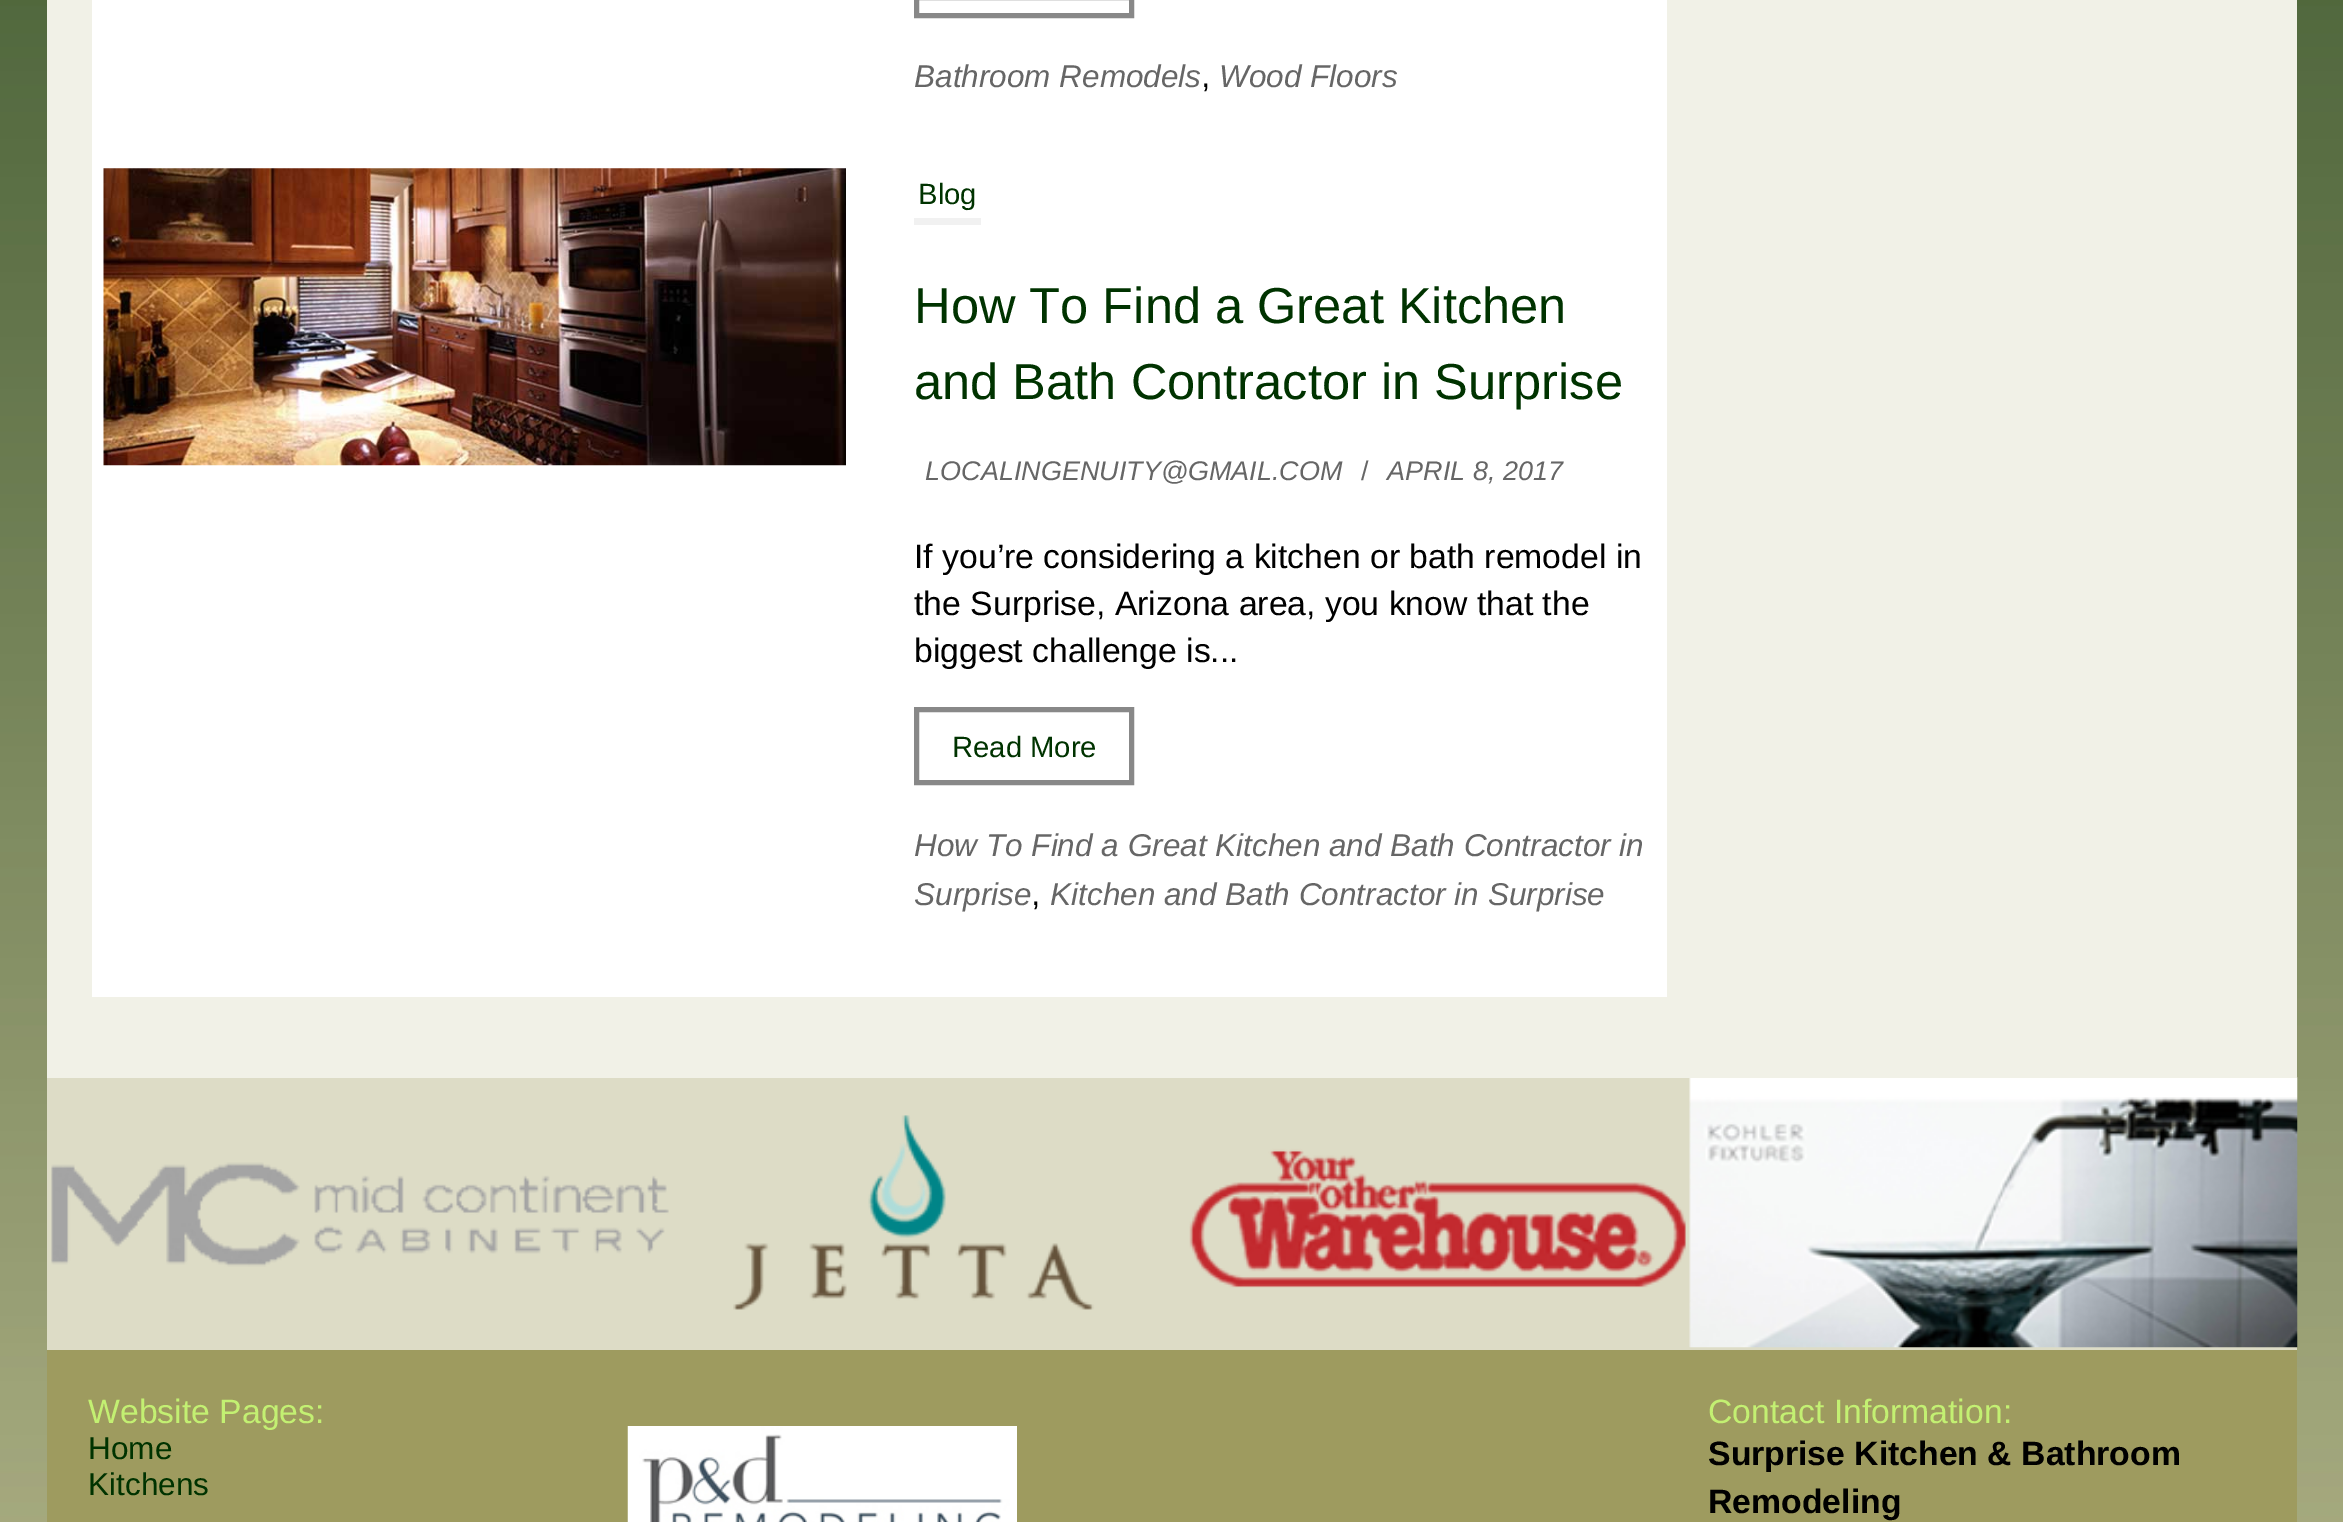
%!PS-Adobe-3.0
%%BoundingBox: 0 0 2343 1522
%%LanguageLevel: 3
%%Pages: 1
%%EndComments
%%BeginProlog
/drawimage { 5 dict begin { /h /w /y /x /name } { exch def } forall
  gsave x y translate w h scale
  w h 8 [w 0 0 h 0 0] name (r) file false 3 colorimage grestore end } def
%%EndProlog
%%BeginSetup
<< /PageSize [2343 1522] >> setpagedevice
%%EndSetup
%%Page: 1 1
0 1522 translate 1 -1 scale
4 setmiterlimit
1 setgray
0 0 2343 1522 rectfill
(images/1.raw) 0 0 2343 1522 drawimage
0.867 0.863 0.776 setrgbcolor
47 1078 2250 272 rectfill
(images/3.raw) 51 1077 2247 271 drawimage
0.945 0.945 0.906 setrgbcolor
47 0 2250 1078 rectfill
1 setgray
92 0 1575 997 rectfill
0.533 setgray
5 setlinewidth
916.5 -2.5 215 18 rectstroke
(images/2.raw) 103 168 743 298 drawimage
0.945 setgray
914 218 67 7 rectfill
0.533 setgray
916.5 709.5 215 73 rectstroke
0.62 0.608 0.373 setrgbcolor
47 1350 2250 172 rectfill
(images/4.raw) 627 1426 390 96 drawimage
/LiberationSans-Italic [31.5 0 0 -31.5 0 0] selectfont
0.4 setgray
914 87 moveto (Bathroom Remodels) show
/LiberationSans-Regular [33.75 0 0 -33.75 0 0] selectfont
0 setgray
1201 87 moveto (,) show
/LiberationSans-Italic [31.5 0 0 -31.5 0 0] selectfont
0.4 setgray
1219 87 moveto (Wood Floors) show
/LiberationSans-Regular [29.25 0 0 -29.25 0 0] selectfont
0 0.2 0 setrgbcolor
918 204 moveto (Blog) show
/LiberationSans-Regular [50.6 0 0 -50.6 0 0] selectfont
914 323 moveto (How To Find a Great Kitchen) show
914 399 moveto (and Bath Contractor in Surprise) show
/LiberationSans-Italic [27 0 0 -27 0 0] selectfont
0.4 setgray
925 480 moveto (LOCALINGENUITY@GMAIL.COM) show
/LiberationSans-Regular [27 0 0 -27 0 0] selectfont
1361 480 moveto (/) show
/LiberationSans-Italic [27 0 0 -27 0 0] selectfont
1387 480 moveto (APRIL 8, 2017) show
/LiberationSans-Regular [33.75 0 0 -33.75 0 0] selectfont
0 setgray
914 568 moveto (If you’re considering a kitchen or bath remodel in) show
914 615 moveto (the Surprise, Arizona area, you know that the) show
914 662 moveto (biggest challenge is...) show
/LiberationSans-Regular [29.25 0 0 -29.25 0 0] selectfont
0 0.2 0 setrgbcolor
952 757 moveto (Read More) show
/LiberationSans-Italic [31.5 0 0 -31.5 0 0] selectfont
0.4 setgray
914 856 moveto (How To Find a Great Kitchen and Bath Contractor in) show
914 905 moveto (Surprise) show
/LiberationSans-Regular [33.75 0 0 -33.75 0 0] selectfont
0 setgray
1031 905 moveto (,) show
/LiberationSans-Italic [31.5 0 0 -31.5 0 0] selectfont
0.4 setgray
1050 905 moveto (Kitchen and Bath Contractor in Surprise) show
/LiberationSans-Regular [33.75 0 0 -33.75 0 0] selectfont
0.765 0.941 0.447 setrgbcolor
88 1423 moveto (Website Pages:) show
/LiberationSans-Regular [31.5 0 0 -31.5 0 0] selectfont
0 0.2 0 setrgbcolor
88 1459 moveto (Home) show
88 1495 moveto (Kitchens) show
/LiberationSans-Regular [33.75 0 0 -33.75 0 0] selectfont
0.765 0.941 0.447 setrgbcolor
1708 1423 moveto (Contact Information:) show
/LiberationSans-Bold [33.75 0 0 -33.75 0 0] selectfont
0 setgray
1708 1465 moveto (Surprise Kitchen & Bathroom) show
1708 1513 moveto (Remodeling) show
showpage
%%EOF
